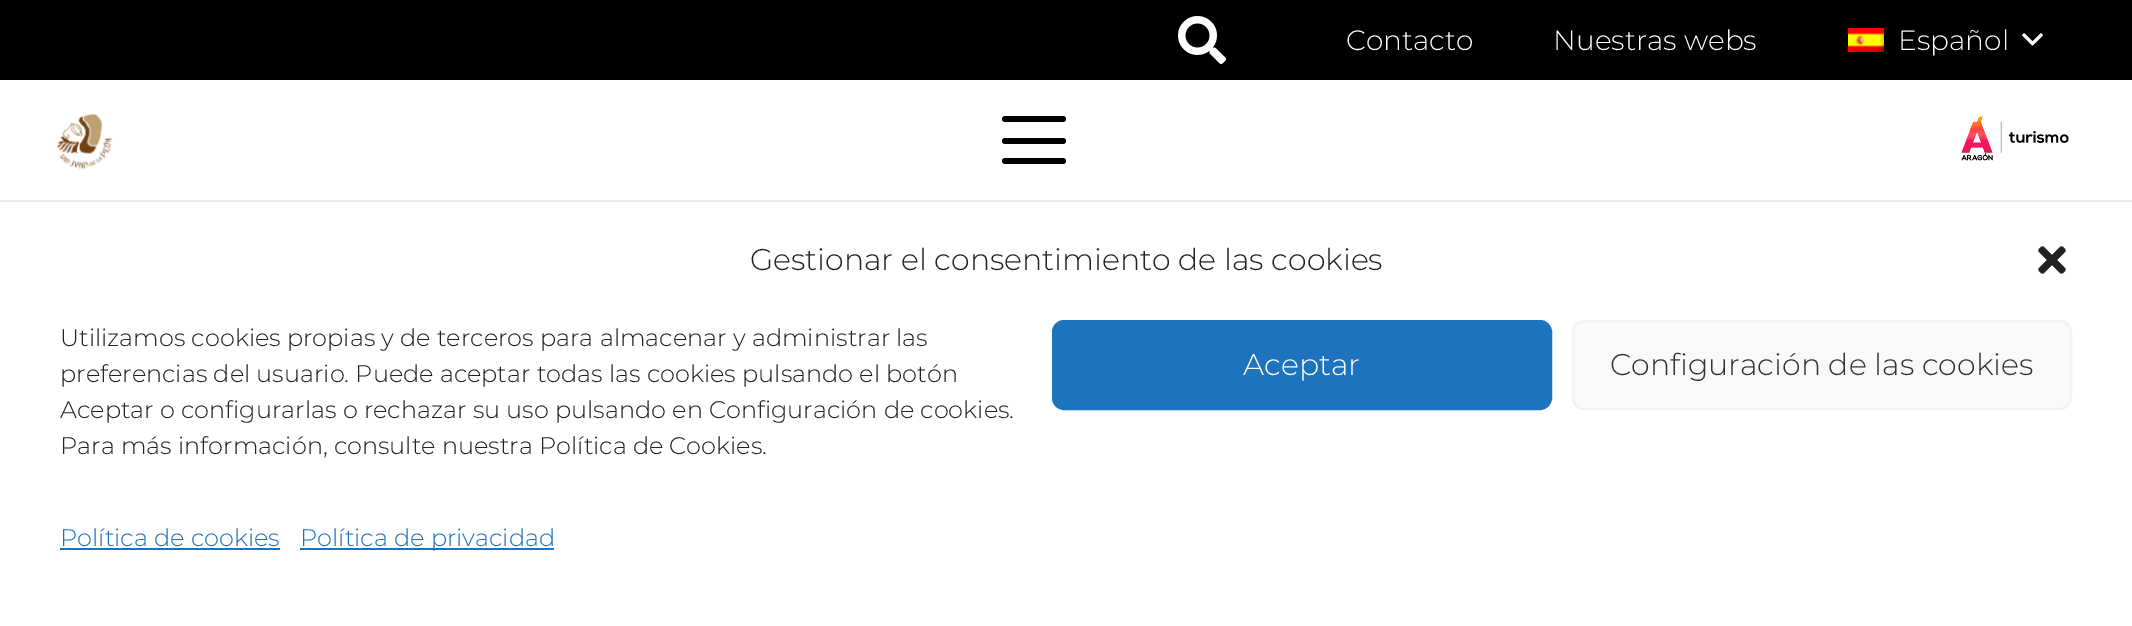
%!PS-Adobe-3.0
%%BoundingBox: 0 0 2132 626
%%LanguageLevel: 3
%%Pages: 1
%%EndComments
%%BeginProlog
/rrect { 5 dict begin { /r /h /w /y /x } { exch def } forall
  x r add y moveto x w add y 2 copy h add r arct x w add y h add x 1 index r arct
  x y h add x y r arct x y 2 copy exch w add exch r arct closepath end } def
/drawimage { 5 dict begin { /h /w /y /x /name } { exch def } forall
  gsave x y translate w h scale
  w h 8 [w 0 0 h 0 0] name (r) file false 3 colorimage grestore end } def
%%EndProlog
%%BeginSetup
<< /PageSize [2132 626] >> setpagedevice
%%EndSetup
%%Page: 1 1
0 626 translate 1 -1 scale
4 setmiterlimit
1 setgray
0 0 2132 626 rectfill
0 setgray
0 0 2132 80 rectfill
(images/1.raw) 1178 16 48 48 drawimage
(images/2.raw) 1848 28 36 24 drawimage
(images/3.raw) 2022 33 21 13 drawimage
0.922 setgray
0 200 2132 2 rectfill
(images/4.raw) 57 113 56 57 drawimage
0 setgray
1002 138 64 6 3 rrect fill
1002 116 64 6 3 rrect fill
1002 158 64 6 3 rrect fill
(images/5.raw) 1961 116 108 45 drawimage
(images/6.raw) 2038 246 28 28 drawimage
0.118 0.451 0.745 setrgbcolor
1053 321 498 88 11 rrect gsave fill grestore
2 setlinewidth
stroke
0.976 setgray
1573 321 498 88 11 rrect gsave fill grestore
0.949 setgray
stroke
0.118 0.451 0.745 setrgbcolor
60 548 220 2 rectfill
300 548 254 2 rectfill
/Montserrat-Light [28 0 0 -28 0 0] selectfont
1 setgray
1346 50 moveto (Contacto) show
1553 50 moveto (Nuestras webs) show
1898 50 moveto (Español) show
/Montserrat-Light [30 0 0 -30 0 0] selectfont
0.133 setgray
750 270 moveto (Gestionar el consentimiento de las cookies) show
/Montserrat-Light [24 0 0 -24 0 0] selectfont
60 346 moveto (Utilizamos cookies propias y de terceros para almacenar y administrar las) show
60 382 moveto (preferencias del usuario. Puede aceptar todas las cookies pulsando el botón) show
60 418 moveto (Aceptar o configurarlas o rechazar su uso pulsando en Configuración de cookies.) show
60 454 moveto (Para más información, consulte nuestra Política de Cookies.) show
/Montserrat-Light [30 0 0 -30 0 0] selectfont
1 setgray
1243 375 moveto (Aceptar) show
0.2 setgray
1610 375 moveto (Configuración de las cookies) show
/Montserrat-Light [24 0 0 -24 0 0] selectfont
0.118 0.451 0.745 setrgbcolor
60 546 moveto (Política de cookies) show
300 546 moveto (Política de privacidad) show
showpage
%%EOF
